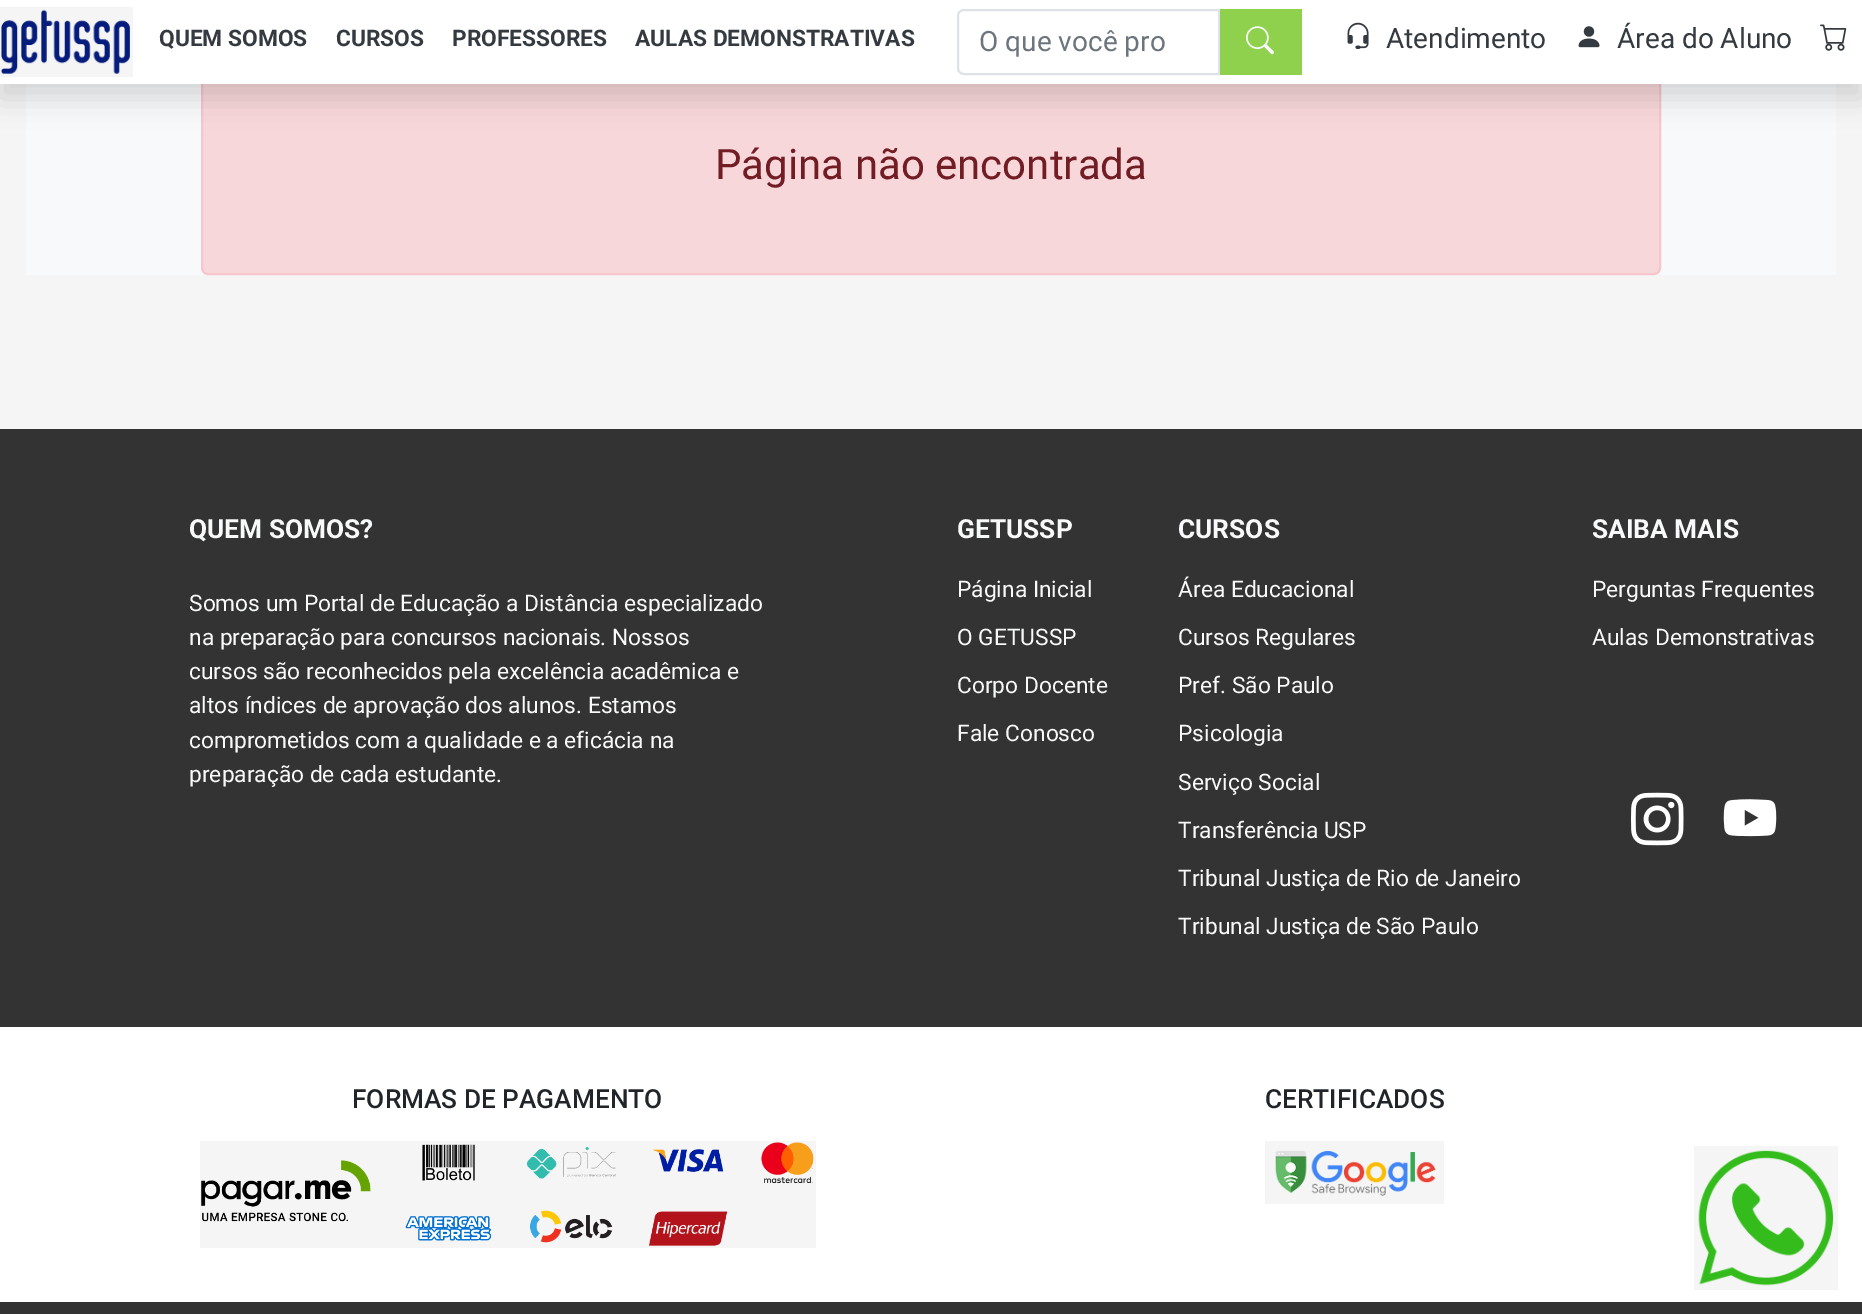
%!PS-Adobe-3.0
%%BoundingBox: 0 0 1862 1314
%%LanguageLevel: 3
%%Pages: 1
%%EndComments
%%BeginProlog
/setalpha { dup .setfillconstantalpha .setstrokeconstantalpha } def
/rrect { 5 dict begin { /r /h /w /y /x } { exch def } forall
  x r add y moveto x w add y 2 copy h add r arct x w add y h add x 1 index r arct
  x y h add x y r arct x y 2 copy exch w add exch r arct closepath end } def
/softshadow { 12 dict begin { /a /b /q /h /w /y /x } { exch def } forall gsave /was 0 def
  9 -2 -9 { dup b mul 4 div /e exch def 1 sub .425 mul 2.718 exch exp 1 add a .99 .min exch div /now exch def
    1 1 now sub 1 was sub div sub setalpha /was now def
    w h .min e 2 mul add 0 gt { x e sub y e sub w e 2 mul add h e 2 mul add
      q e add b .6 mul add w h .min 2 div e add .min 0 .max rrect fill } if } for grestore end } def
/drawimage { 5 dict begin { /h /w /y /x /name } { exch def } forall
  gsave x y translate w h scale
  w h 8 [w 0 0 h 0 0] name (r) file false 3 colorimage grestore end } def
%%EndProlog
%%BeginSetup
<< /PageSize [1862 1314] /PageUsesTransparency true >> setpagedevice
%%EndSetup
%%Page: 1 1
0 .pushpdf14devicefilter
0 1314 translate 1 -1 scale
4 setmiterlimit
0.961 setgray
0 0 1862 1314 rectfill
0.973 0.976 0.98 setrgbcolor
26 84 1810 191 rectfill
0.973 0.843 0.855 setrgbcolor
202 -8 1458 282 6 rrect gsave fill grestore
0.961 0.776 0.796 setrgbcolor
2 setlinewidth
stroke
0 setgray
0 14 1862 84 0 14 0.15 softshadow
1 setgray
0 0 1862 84 rectfill
(images/1.raw) 0 7 133 70 drawimage
0.871 0.886 0.902 setrgbcolor
newpath 964 10 moveto 1219 10 lineto 1219 74 lineto 964 74 lineto 960.5 74 958 71.5 958 68 curveto 958 16 lineto 958 12.5 960.5 10 964 10 curveto closepath stroke
0.561 0.82 0.298 setrgbcolor
1220 9 82 66 rectfill
(images/2.raw) 1246 26 28 29 drawimage
(images/3.raw) 1347 22 22 27 drawimage
(images/4.raw) 1578 26 22 22 drawimage
(images/5.raw) 1820 24 27 27 drawimage
0.2 setgray
0 429 1862 598 rectfill
(images/6.raw) 1631 792 53 54 drawimage
(images/7.raw) 1723 799 54 38 drawimage
1 setgray
0 1027 1862 275 rectfill
(images/8.raw) 200 1141 616 107 drawimage
(images/9.raw) 1265 1141 179 63 drawimage
(images/10.raw) 1694 1146 144 144 drawimage
0.2 setgray
0 1302 1862 12 rectfill
/Roboto-Bold [22.75 0 0 -22.75 0 0] selectfont
0.204 0.227 0.251 setrgbcolor
159 46 moveto (QUEM SOMOS) show
336 46 moveto (CURSOS) show
452 46 moveto (PROFESSORES) show
635 46 moveto (AULAS DEMONSTRATIVAS) show
/Roboto-Regular [28 0 0 -28 0 0] selectfont
0.424 0.459 0.49 setrgbcolor
979 51 moveto (O que você pro) show
0.204 0.227 0.251 setrgbcolor
1386 48 moveto (Atendimento) show
1617 48 moveto (Área do Aluno) show
/Roboto-Regular [42 0 0 -42 0 0] selectfont
0.447 0.11 0.141 setrgbcolor
715 179 moveto (Página não encontrada) show
/Roboto-Bold [26.25 0 0 -26.25 0 0] selectfont
0.973 0.976 0.98 setrgbcolor
189 538 moveto (QUEM SOMOS?) show
/Roboto-Regular [22.75 0 0 -22.75 0 0] selectfont
189 611 moveto (Somos um Portal de Educação a Distância especializado) show
189 645 moveto (na preparação para concursos nacionais. Nossos) show
189 679 moveto (cursos são reconhecidos pela excelência acadêmica e) show
189 713 moveto (altos índices de aprovação dos alunos. Estamos) show
189 748 moveto (comprometidos com a qualidade e a eficácia na) show
189 782 moveto (preparação de cada estudante.) show
/Roboto-Bold [26.25 0 0 -26.25 0 0] selectfont
957 538 moveto (GETUSSP) show
/Roboto-Regular [22.75 0 0 -22.75 0 0] selectfont
957 597 moveto (Página Inicial) show
957 645 moveto (O GETUSSP) show
957 693 moveto (Corpo Docente) show
957 741 moveto (Fale Conosco) show
/Roboto-Bold [26.25 0 0 -26.25 0 0] selectfont
1178 538 moveto (CURSOS) show
/Roboto-Regular [22.75 0 0 -22.75 0 0] selectfont
1178 597 moveto (Área Educacional) show
1178 645 moveto (Cursos Regulares) show
1178 693 moveto (Pref. São Paulo) show
1178 741 moveto (Psicologia) show
1178 790 moveto (Serviço Social) show
1178 838 moveto (Transferência USP) show
1178 886 moveto (Tribunal Justiça de Rio de Janeiro) show
1178 934 moveto (Tribunal Justiça de São Paulo) show
/Roboto-Bold [26.25 0 0 -26.25 0 0] selectfont
1592 538 moveto (SAIBA MAIS) show
/Roboto-Regular [22.75 0 0 -22.75 0 0] selectfont
1592 597 moveto (Perguntas Frequentes) show
1592 645 moveto (Aulas Demonstrativas) show
/Roboto-Medium [26.25 0 0 -26.25 0 0] selectfont
0.129 0.145 0.161 setrgbcolor
352 1108 moveto (FORMAS DE PAGAMENTO) show
1265 1108 moveto (CERTIFICADOS) show
.poppdf14devicefilter showpage
%%EOF
